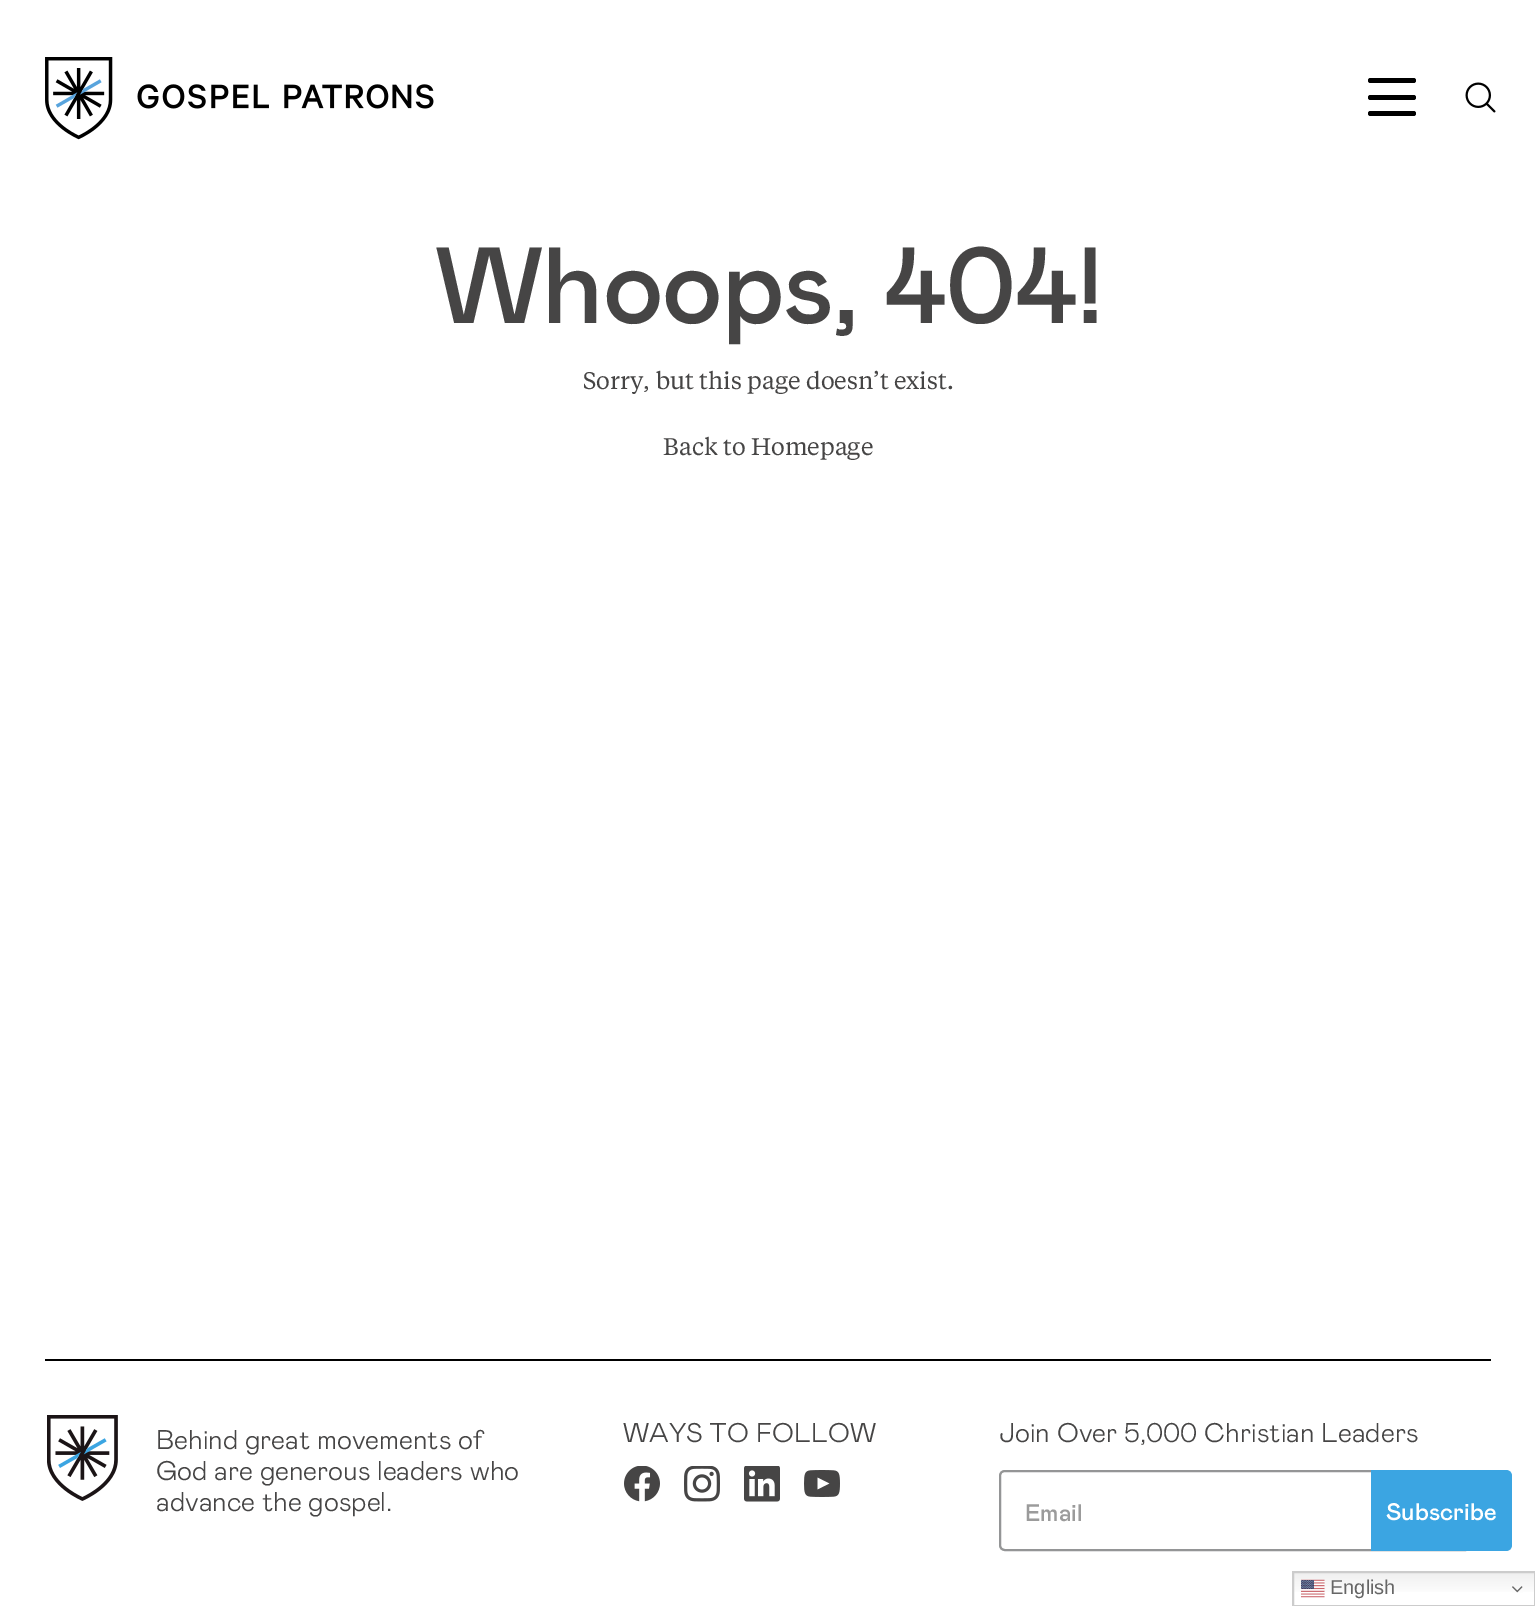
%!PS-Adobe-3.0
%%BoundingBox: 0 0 1535 1606
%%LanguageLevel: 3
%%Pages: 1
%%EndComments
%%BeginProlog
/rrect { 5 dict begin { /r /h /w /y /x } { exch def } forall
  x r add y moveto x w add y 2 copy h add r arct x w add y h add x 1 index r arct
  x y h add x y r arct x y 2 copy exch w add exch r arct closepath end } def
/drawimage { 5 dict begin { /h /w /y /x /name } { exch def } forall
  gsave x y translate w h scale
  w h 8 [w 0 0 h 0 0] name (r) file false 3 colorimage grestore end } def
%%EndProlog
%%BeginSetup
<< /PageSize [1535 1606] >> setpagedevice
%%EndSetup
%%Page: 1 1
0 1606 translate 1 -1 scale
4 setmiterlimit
1 setgray
0 0 1535 1606 rectfill
(images/1.raw) 45 57 389 83 drawimage
0 setgray
1368 78 48 5 2.5 rrect fill
1368 95 48 5 2.5 rrect fill
1368 111 48 5 2.5 rrect fill
(images/2.raw) 1465 82 31 31 drawimage
45 1359 1446 2 rectfill
(images/3.raw) 47 1415 71 86 drawimage
(images/4.raw) 624 1466 36 36 drawimage
(images/5.raw) 684 1466 36 36 drawimage
(images/6.raw) 744 1466 36 36 drawimage
(images/7.raw) 804 1470 36 27 drawimage
0.58 0.584 0.588 setrgbcolor
2 setlinewidth
newpath 1005 1471 moveto 1465 1471 lineto 1465 1550 lineto 1005 1550 lineto 1002 1550 1000 1548 1000 1545 curveto 1000 1476 lineto 1000 1473 1002 1471 1005 1471 curveto closepath stroke
0.231 0.647 0.886 setrgbcolor
newpath 1371 1470 moveto 1506 1470 lineto 1509.5 1470 1512 1472.5 1512 1476 curveto 1512 1545 lineto 1512 1548.5 1509.5 1551 1506 1551 curveto 1371 1551 lineto closepath fill
gsave newpath 1294 1573 moveto 1534 1573 lineto 1534 1592 lineto 1294 1592 lineto closepath clip newpath
<< /ShadingType 2 /ColorSpace /DeviceRGB /Coords [1414 1571 1414 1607] /Extend [true true] /Function << /FunctionType 3 /Domain [0 1] /Functions [<< /FunctionType 2 /Domain [0 1] /C0 [0.937 0.937 0.937] /C1 [1 1 1] /N 1 >> << /FunctionType 2 /Domain [0 1] /C0 [1 1 1] /C1 [1 1 1] /N 1 >>] /Bounds [0.7] /Encode [0 1 0 1] >> >> shfill grestore
0.8 setgray
1293 1572 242 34 rectstroke
(images/8.raw) 1301 1579 24 19 drawimage
(images/9.raw) 1512 1586 11 7 drawimage
/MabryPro-Medium [108 0 0 -108 0 0] selectfont
0.275 0.271 0.271 setrgbcolor
435 323 moveto -1 0 (Whoops, 404!) ashow
/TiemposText-Regular [24 0 0 -24 0 0] selectfont
583 389 moveto (Sorry, but this page doesn’t exist.) show
663 455 moveto (Back to Homepage) show
/MabryPro-Light [27 0 0 -27 0 0] selectfont
156 1449 moveto (Behind great movements of) show
156 1480 moveto (God are generous leaders who) show
156 1511 moveto (advance the gospel.) show
623 1442 moveto (WAYS TO FOLLOW) show
999 1442 moveto (Join Over 5,000 Christian Leaders) show
/MabryPro-Medium [24 0 0 -24 0 0] selectfont
0.608 setgray
1025 1521 moveto (Email) show
1 setgray
1386 1520 moveto (Subscribe) show
/LiberationSans-Regular [20 0 0 -20 0 0] selectfont
0.4 setgray
1330 1594 moveto (English) show
showpage
%%EOF
